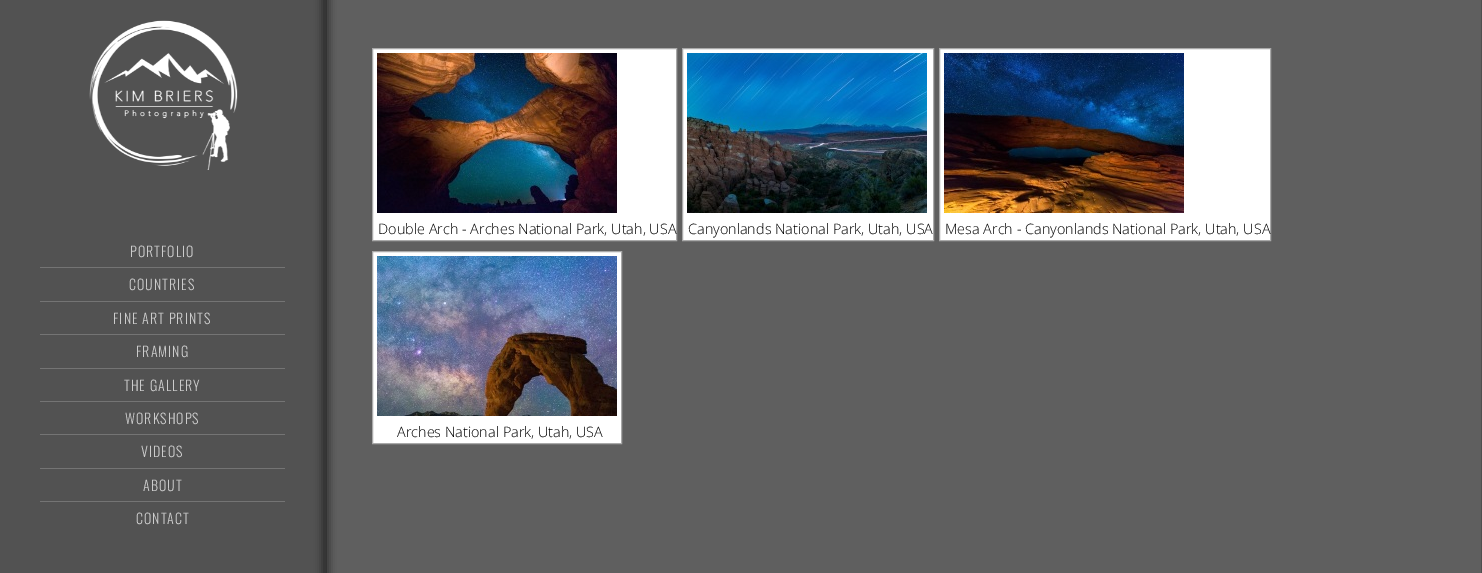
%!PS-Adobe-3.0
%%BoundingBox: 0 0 1482 573
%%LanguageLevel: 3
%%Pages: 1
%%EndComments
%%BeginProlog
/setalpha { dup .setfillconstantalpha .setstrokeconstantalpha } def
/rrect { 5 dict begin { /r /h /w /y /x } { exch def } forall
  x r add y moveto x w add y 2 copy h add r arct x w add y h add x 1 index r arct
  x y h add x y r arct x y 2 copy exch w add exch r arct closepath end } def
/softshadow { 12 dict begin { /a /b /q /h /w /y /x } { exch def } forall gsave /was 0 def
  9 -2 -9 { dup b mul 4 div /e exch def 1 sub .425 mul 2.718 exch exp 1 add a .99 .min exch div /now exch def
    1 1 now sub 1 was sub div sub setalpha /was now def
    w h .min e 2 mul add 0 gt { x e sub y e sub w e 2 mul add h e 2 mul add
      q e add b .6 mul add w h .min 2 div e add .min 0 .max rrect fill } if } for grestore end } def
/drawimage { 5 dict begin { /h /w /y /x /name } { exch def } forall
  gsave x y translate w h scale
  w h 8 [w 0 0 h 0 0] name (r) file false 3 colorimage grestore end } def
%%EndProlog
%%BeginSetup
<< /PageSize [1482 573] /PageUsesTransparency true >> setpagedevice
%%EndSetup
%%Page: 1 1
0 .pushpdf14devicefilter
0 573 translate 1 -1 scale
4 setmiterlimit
0.322 setgray
0 0 1482 573 rectfill
0 setgray
322 -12 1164 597 0 4 0.5 softshadow
0.373 setgray
327 0 1154 573 rectfill
0.306 setgray
326 0 1 573 rectfill
gsave
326 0 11 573 rectclip
0 setgray
-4 -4 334 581 0 4 0.4 softshadow
grestore
0.212 setgray
325 0 1 573 rectfill
(images/1.raw) 89 20 149 150 drawimage
0.455 setgray
40 267 245 1 rectfill
40 301 245 1 rectfill
40 334 245 1 rectfill
40 368 245 1 rectfill
40 401 245 1 rectfill
40 434 245 1 rectfill
40 468 245 1 rectfill
40 501 245 1 rectfill
0.306 setgray
1481 0 1 573 rectfill
1 setgray
newpath 372.5 48.5 moveto 676.5 48.5 lineto 676.5 240.5 lineto 372.5 240.5 lineto closepath gsave fill grestore
0.663 setgray
stroke
(images/2.raw) 377 53 240 160 drawimage
1 setgray
newpath 682.5 48.5 moveto 933.5 48.5 lineto 933.5 240.5 lineto 682.5 240.5 lineto closepath gsave fill grestore
0.663 setgray
stroke
(images/3.raw) 687 53 240 160 drawimage
1 setgray
newpath 939.5 48.5 moveto 1270.5 48.5 lineto 1270.5 240.5 lineto 939.5 240.5 lineto closepath gsave fill grestore
0.663 setgray
stroke
(images/4.raw) 944 53 240 160 drawimage
1 setgray
newpath 372.5 251.5 moveto 621.5 251.5 lineto 621.5 443.5 lineto 372.5 443.5 lineto closepath gsave fill grestore
0.663 setgray
stroke
(images/5.raw) 377 256 240 160 drawimage
/Oswald-Light [14 0 0 -14 0 0] selectfont
0.8 setgray
130 257 moveto 1 0 (PORTFOLIO) ashow
129 290 moveto 1 0 (COUNTRIES) ashow
113 324 moveto 1 0 (FINE ART PRINTS) ashow
136 357 moveto 1 0 (FRAMING) ashow
124 391 moveto 1 0 (THE GALLERY) ashow
125 424 moveto 1 0 (WORKSHOPS) ashow
141 457 moveto 1 0 (VIDEOS) ashow
143 491 moveto 1 0 (ABOUT) ashow
136 524 moveto 1 0 (CONTACT) ashow
/OpenSans-Light [14.4 0 0 -14.4 0 0] selectfont
0 setgray
378 234 moveto (Double Arch - Arches National Park, Utah, USA) show
688 234 moveto (Canyonlands National Park, Utah, USA) show
945 234 moveto (Mesa Arch - Canyonlands National Park, Utah, USA) show
397 437 moveto (Arches National Park, Utah, USA) show
.poppdf14devicefilter showpage
%%EOF
